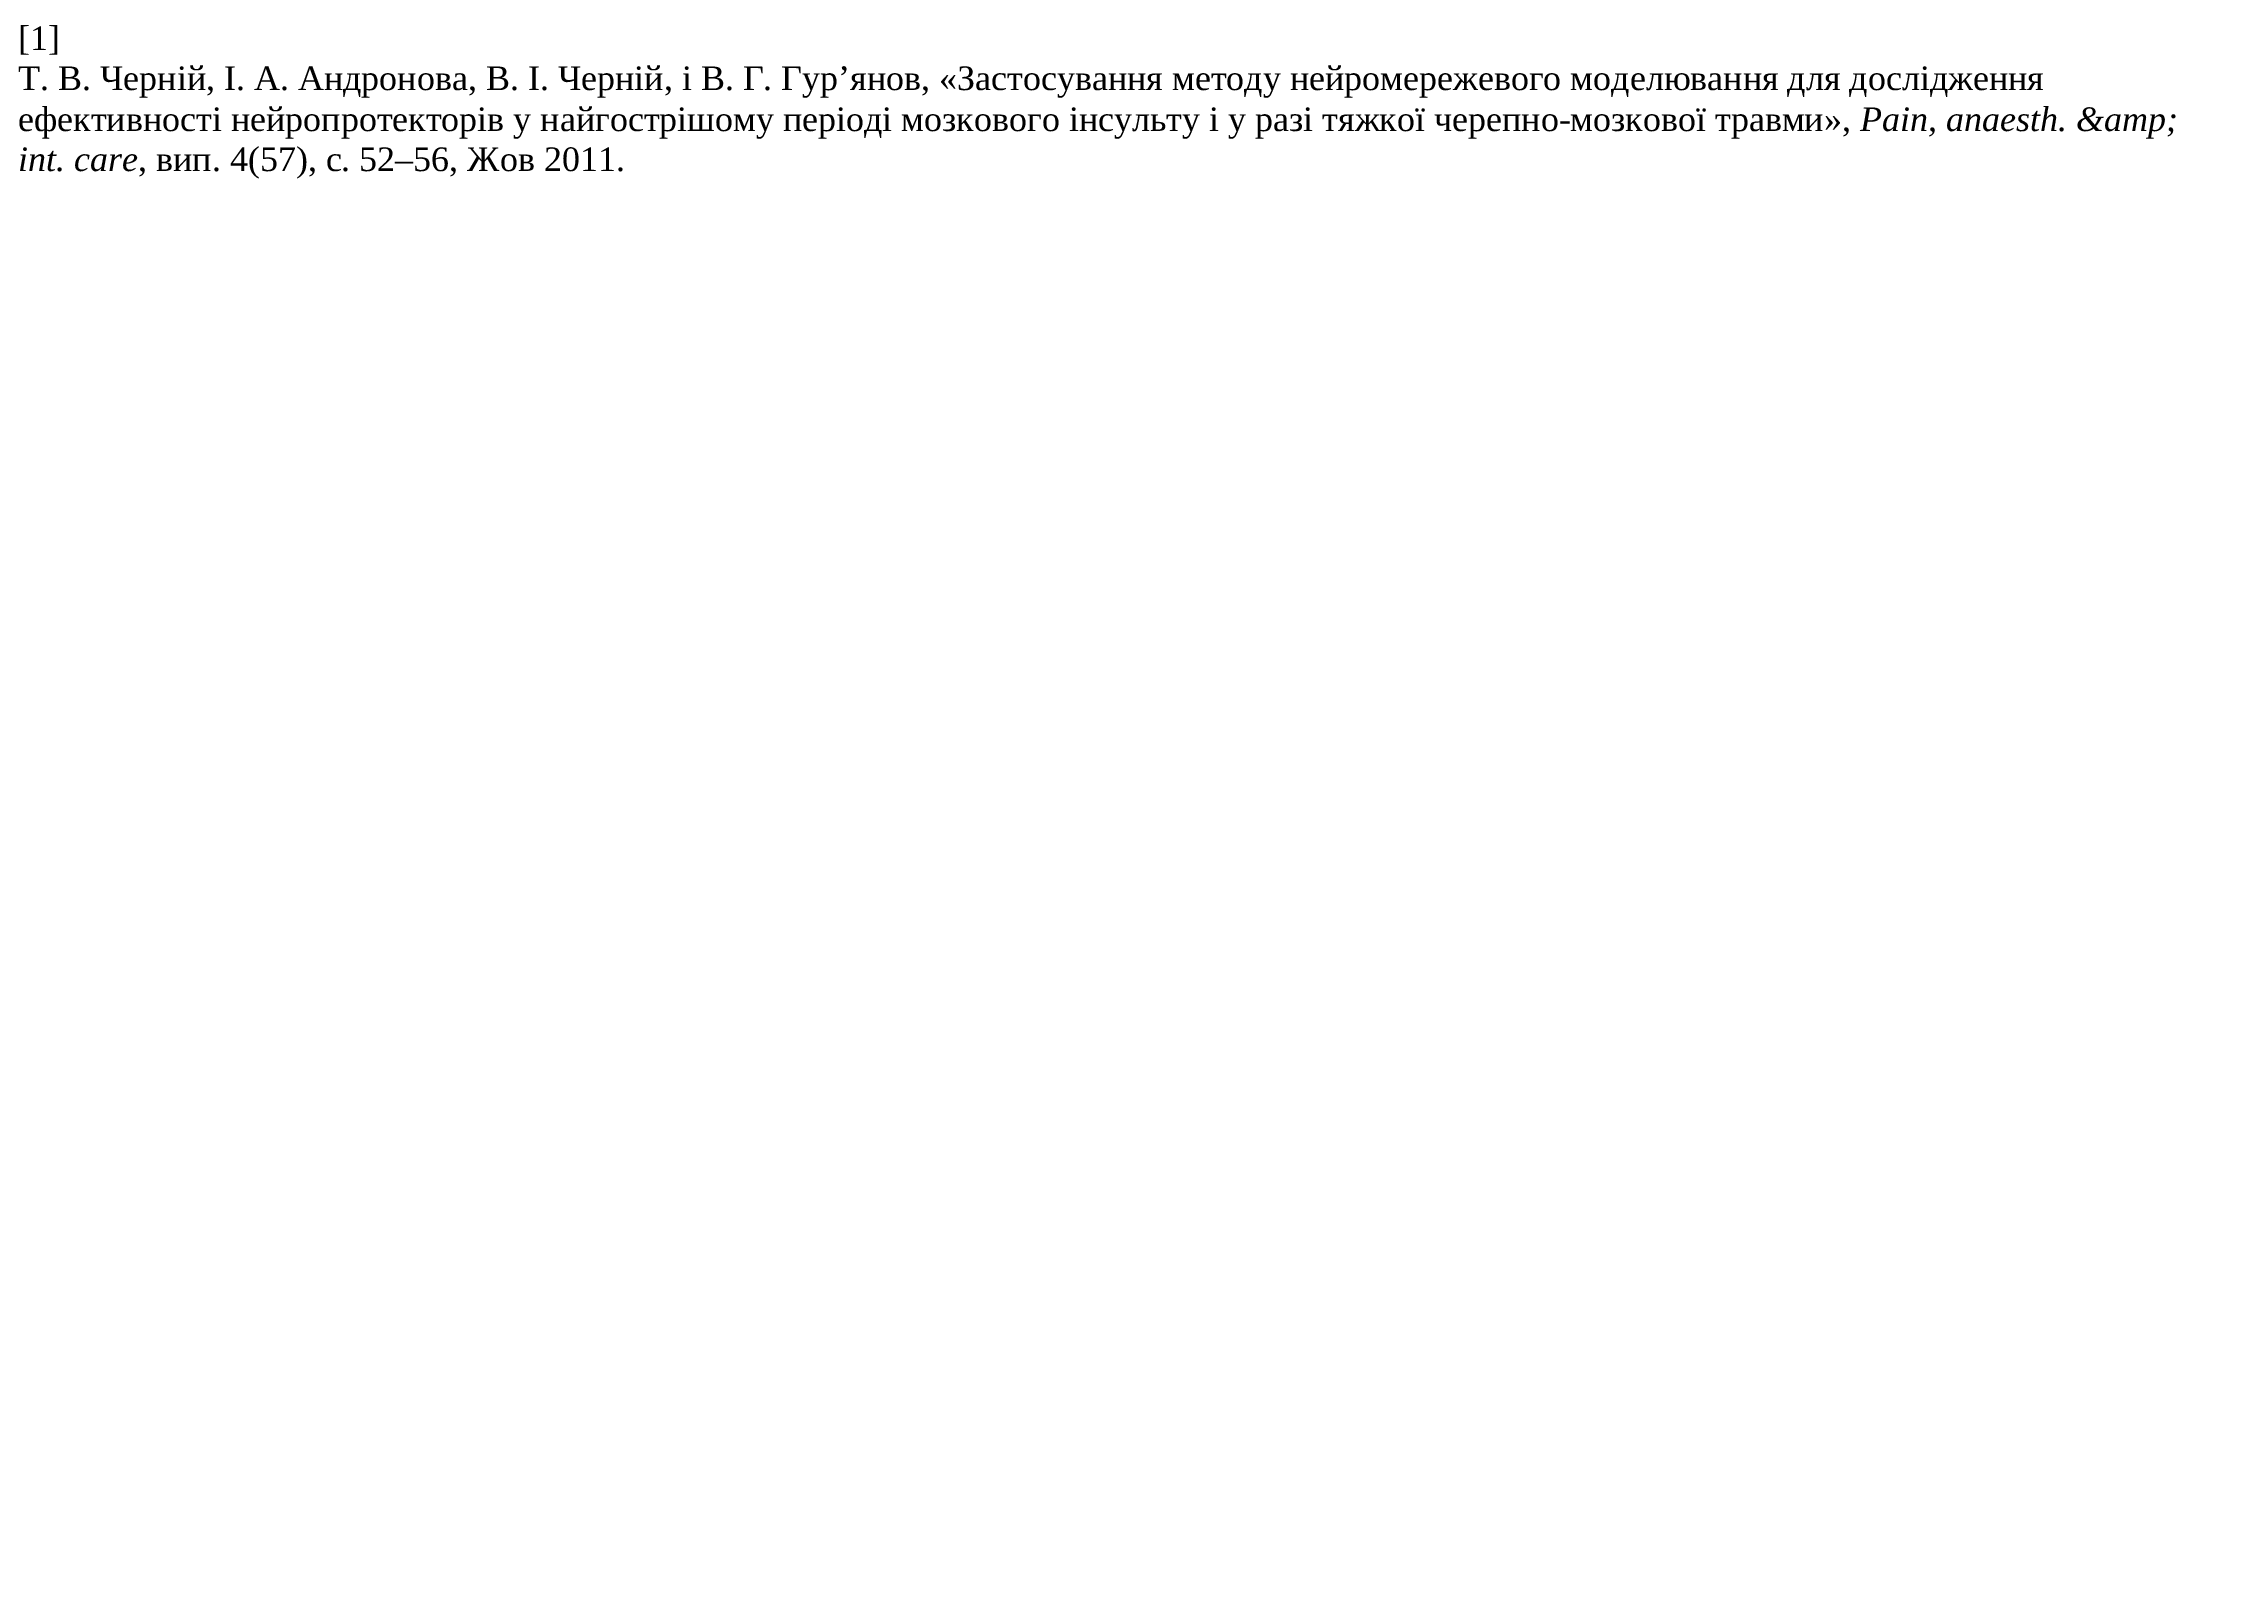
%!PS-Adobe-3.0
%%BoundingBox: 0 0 2241 1613
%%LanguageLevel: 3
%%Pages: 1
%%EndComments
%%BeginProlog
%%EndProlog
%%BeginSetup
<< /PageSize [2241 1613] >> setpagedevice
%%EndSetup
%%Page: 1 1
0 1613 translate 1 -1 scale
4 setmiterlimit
1 setgray
0 0 2241 1613 rectfill
/LiberationSerif-Regular [36 0 0 -36 0 0] selectfont
0 setgray
18 50 moveto ([1]) show
18 90 moveto (Т. В. Черній, І. А. Андронова, В. І. Черній, і В. Г. Гур’янов, «Застосування методу нейромережевого моделювання для дослідження) show
18 131 moveto (ефективності нейропротекторів у найгострішому періоді мозкового інсульту і у разі тяжкої черепно-мозкової травми»,) show
/LiberationSerif-Italic [36 0 0 -36 0 0] selectfont
1860 131 moveto (Pain, anaesth. &amp;) show
18 171 moveto (int. care) show
/LiberationSerif-Regular [36 0 0 -36 0 0] selectfont
138 171 moveto (, вип. 4\(57\), с. 52–56, Жов 2011.) show
showpage
%%EOF
